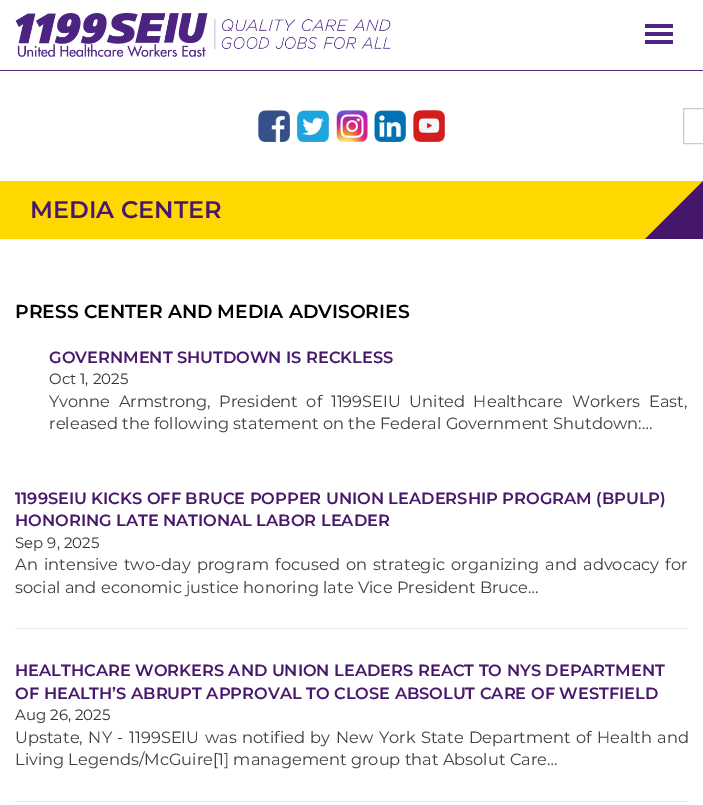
%!PS-Adobe-3.0
%%BoundingBox: 0 0 703 805
%%LanguageLevel: 3
%%Pages: 1
%%EndComments
%%BeginProlog
/drawimage { 5 dict begin { /h /w /y /x /name } { exch def } forall
  gsave x y translate w h scale
  w h 8 [w 0 0 h 0 0] name (r) file false 3 colorimage grestore end } def
%%EndProlog
%%BeginSetup
<< /PageSize [703 805] >> setpagedevice
%%EndSetup
%%Page: 1 1
0 805 translate 1 -1 scale
4 setmiterlimit
1 setgray
0 0 703 805 rectfill
(images/1.raw) 15 13 376 44 drawimage
0.31 0.149 0.514 setrgbcolor
645 24 28 4 rectfill
645 32 28 4 rectfill
645 40 28 4 rectfill
0.349 0.153 0.494 setrgbcolor
0 70 703 1 rectfill
(images/2.raw) 258 110 32 32 drawimage
(images/3.raw) 297 110 32 32 drawimage
(images/4.raw) 336 110 32 32 drawimage
(images/5.raw) 374 110 32 32 drawimage
(images/6.raw) 413 110 32 32 drawimage
0.78 0.8 0.816 setrgbcolor
683.5 108.5 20 35 rectstroke
1 0.847 0.004 setrgbcolor
0 181 703 58 rectfill
0.275 0.086 0.42 setrgbcolor
newpath 703 181 moveto 703 239 lineto 645 239 lineto closepath fill
0.925 setgray
15 628 673 1 rectfill
15 801 673 1 rectfill
/Montserrat-SemiBold [24 0 0 -24 0 0] selectfont
0.282 0.094 0.424 setrgbcolor
30 218 moveto (MEDIA CENTER) show
/Montserrat-SemiBold [18.75 0 0 -18.75 0 0] selectfont
0 setgray
15 318 moveto (PRESS CENTER AND MEDIA ADVISORIES) show
/Montserrat-SemiBold [16.25 0 0 -16.25 0 0] selectfont
0.282 0.094 0.424 setrgbcolor
49 363 moveto (GOVERNMENT SHUTDOWN IS RECKLESS) show
/Montserrat-Regular [15 0 0 -15 0 0] selectfont
0.2 setgray
49 384 moveto (Oct 1, 2025) show
/Montserrat-Regular [16.25 0 0 -16.25 0 0] selectfont
0.255 0.255 0.247 setrgbcolor
49 407 moveto 4.25 0 32 (Yvonne Armstrong, President of 1199SEIU United Healthcare Workers East,) widthshow
49 429 moveto (released the following statement on the Federal Government Shutdown:…) show
/Montserrat-SemiBold [16.25 0 0 -16.25 0 0] selectfont
0.282 0.094 0.424 setrgbcolor
15 504 moveto (1199SEIU KICKS OFF BRUCE POPPER UNION LEADERSHIP PROGRAM \(BPULP\)) show
15 526 moveto (HONORING LATE NATIONAL LABOR LEADER) show
/Montserrat-Regular [15 0 0 -15 0 0] selectfont
0.2 setgray
15 548 moveto (Sep 9, 2025) show
/Montserrat-Regular [16.25 0 0 -16.25 0 0] selectfont
0.255 0.255 0.247 setrgbcolor
15 570 moveto 2 0 32 (An intensive two-day program focused on strategic organizing and advocacy for) widthshow
15 593 moveto (social and economic justice honoring late Vice President Bruce…) show
/Montserrat-SemiBold [16.25 0 0 -16.25 0 0] selectfont
0.282 0.094 0.424 setrgbcolor
15 676 moveto (HEALTHCARE WORKERS AND UNION LEADERS REACT TO NYS DEPARTMENT) show
15 699 moveto (OF HEALTH’S ABRUPT APPROVAL TO CLOSE ABSOLUT CARE OF WESTFIELD) show
/Montserrat-Regular [15 0 0 -15 0 0] selectfont
0.2 setgray
15 720 moveto (Aug 26, 2025) show
/Montserrat-Regular [16.25 0 0 -16.25 0 0] selectfont
0.255 0.255 0.247 setrgbcolor
15 743 moveto 1.25 0 32 (Upstate, NY - 1199SEIU was notified by New York State Department of Health and) widthshow
15 765 moveto (Living Legends/McGuire[1] management group that Absolut Care…) show
showpage
%%EOF
